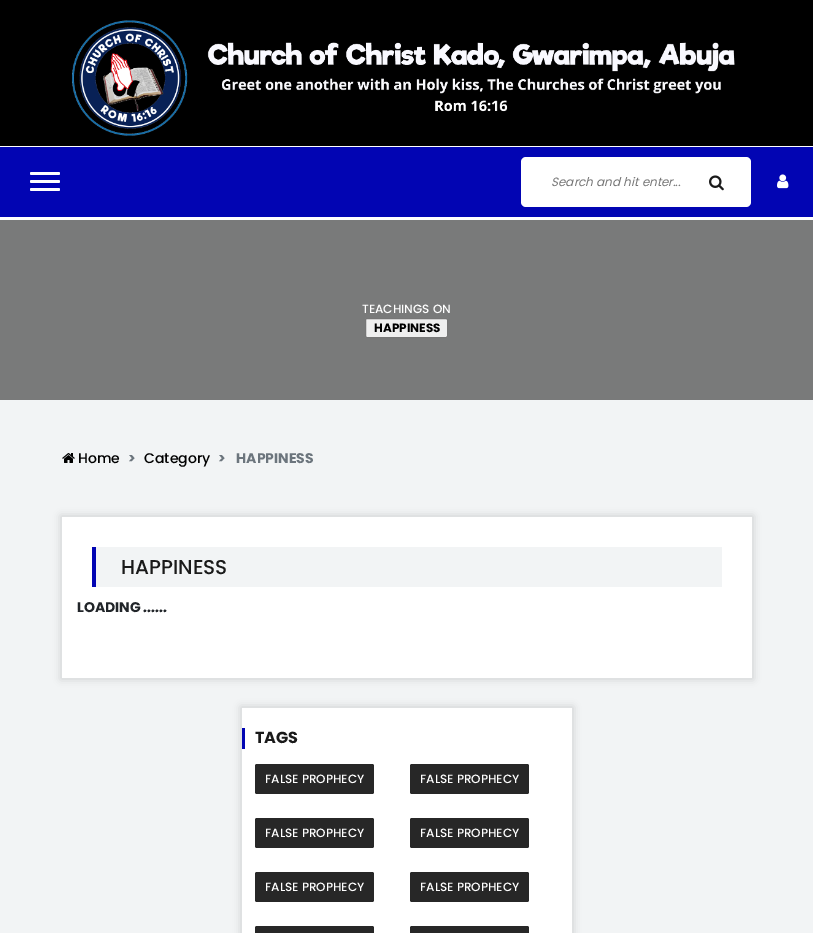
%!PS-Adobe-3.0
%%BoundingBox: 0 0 813 933
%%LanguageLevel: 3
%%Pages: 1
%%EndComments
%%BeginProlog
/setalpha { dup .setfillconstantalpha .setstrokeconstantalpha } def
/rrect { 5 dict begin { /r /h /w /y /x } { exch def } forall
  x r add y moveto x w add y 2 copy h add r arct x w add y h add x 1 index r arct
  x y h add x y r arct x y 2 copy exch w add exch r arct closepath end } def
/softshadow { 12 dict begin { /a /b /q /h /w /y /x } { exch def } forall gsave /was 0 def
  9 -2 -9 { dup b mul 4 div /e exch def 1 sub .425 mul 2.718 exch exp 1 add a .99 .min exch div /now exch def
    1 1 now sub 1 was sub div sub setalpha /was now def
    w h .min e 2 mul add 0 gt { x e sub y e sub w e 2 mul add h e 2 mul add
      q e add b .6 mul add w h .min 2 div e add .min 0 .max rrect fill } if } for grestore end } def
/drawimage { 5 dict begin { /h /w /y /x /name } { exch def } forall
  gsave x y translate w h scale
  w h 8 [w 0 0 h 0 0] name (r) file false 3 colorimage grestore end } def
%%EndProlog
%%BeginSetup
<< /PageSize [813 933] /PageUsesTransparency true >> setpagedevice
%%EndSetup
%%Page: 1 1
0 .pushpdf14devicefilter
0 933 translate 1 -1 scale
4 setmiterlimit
0.949 0.957 0.961 setrgbcolor
0 0 813 933 rectfill
0 setgray
0 0 813 146 rectfill
(images/1.raw) 72 20 663 116 drawimage
0.008 0.02 0.702 setrgbcolor
0 147 813 70 rectfill
1 setgray
0 146 813 1 rectfill
0 217 813 3 rectfill
30 172 30 3 1.5 rrect fill
30 180 30 3 1.5 rrect fill
30 188 30 3 1.5 rrect fill
521 157 230 50 5 rrect fill
(images/2.raw) 709 175 15 16 drawimage
(images/3.raw) 777 174 12 15 drawimage
0.475 0.478 0.478 setrgbcolor
0 220 813 180 rectfill
0.937 setgray
365.5 318.5 82 19 1.5 rrect gsave fill grestore
0.463 setgray
stroke
(images/4.raw) 62 453 13 10 drawimage
0 setgray
61 516 692 163 0 4 0.15 softshadow
1 setgray
62 517 690 161 rectfill
0.949 0.957 0.961 setrgbcolor
96 547 626 40 rectfill
0.008 0.02 0.702 setrgbcolor
92 547 4 40 rectfill
0 setgray
241 707 332 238 0 4 0.15 softshadow
1 setgray
242 708 330 225 rectfill
0.008 0.02 0.702 setrgbcolor
242 728 3 21 rectfill
0.153 setgray
255 764 119 30 2 rrect fill
410 764 119 30 2 rrect fill
255 818 119 30 2 rrect fill
410 818 119 30 2 rrect fill
255 872 119 30 2 rrect fill
410 872 119 30 2 rrect fill
255 926 119 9 2 rrect fill
410 926 119 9 2 rrect fill
/Poppins-Italic [12 0 0 -12 0 0] selectfont
0.459 setgray
551 186 moveto (Search and hit enter...) show
/Poppins-Medium [12 0 0 -12 0 0] selectfont
1 setgray
362 313 moveto (TEACHINGS ON) show
/Poppins-Bold [12 0 0 -12 0 0] selectfont
0 setgray
374 332 moveto (HAPPINESS) show
/Poppins-Medium [14 0 0 -14 0 0] selectfont
78 463 moveto (Home) show
/Poppins-Bold [14 0 0 -14 0 0] selectfont
0.424 0.459 0.49 setrgbcolor
128 463 moveto (>) show
/Poppins-Medium [14 0 0 -14 0 0] selectfont
0 setgray
144 463 moveto (Category) show
/Poppins-Bold [14 0 0 -14 0 0] selectfont
0.424 0.459 0.49 setrgbcolor
218 463 moveto (>) show
236 463 moveto (HAPPINESS) show
/Poppins-Medium [20 0 0 -20 0 0] selectfont
0.102 setgray
121 574 moveto (HAPPINESS) show
/Poppins-Bold [14 0 0 -14 0 0] selectfont
0.129 0.145 0.161 setrgbcolor
77 612 moveto (LOADING ......) show
/Poppins-Bold [16 0 0 -16 0 0] selectfont
0.102 setgray
255 743 moveto (TAGS) show
/Poppins-Medium [12 0 0 -12 0 0] selectfont
1 setgray
265 783 moveto (FALSE PROPHECY) show
420 783 moveto (FALSE PROPHECY) show
265 837 moveto (FALSE PROPHECY) show
420 837 moveto (FALSE PROPHECY) show
265 891 moveto (FALSE PROPHECY) show
420 891 moveto (FALSE PROPHECY) show
.poppdf14devicefilter showpage
%%EOF
